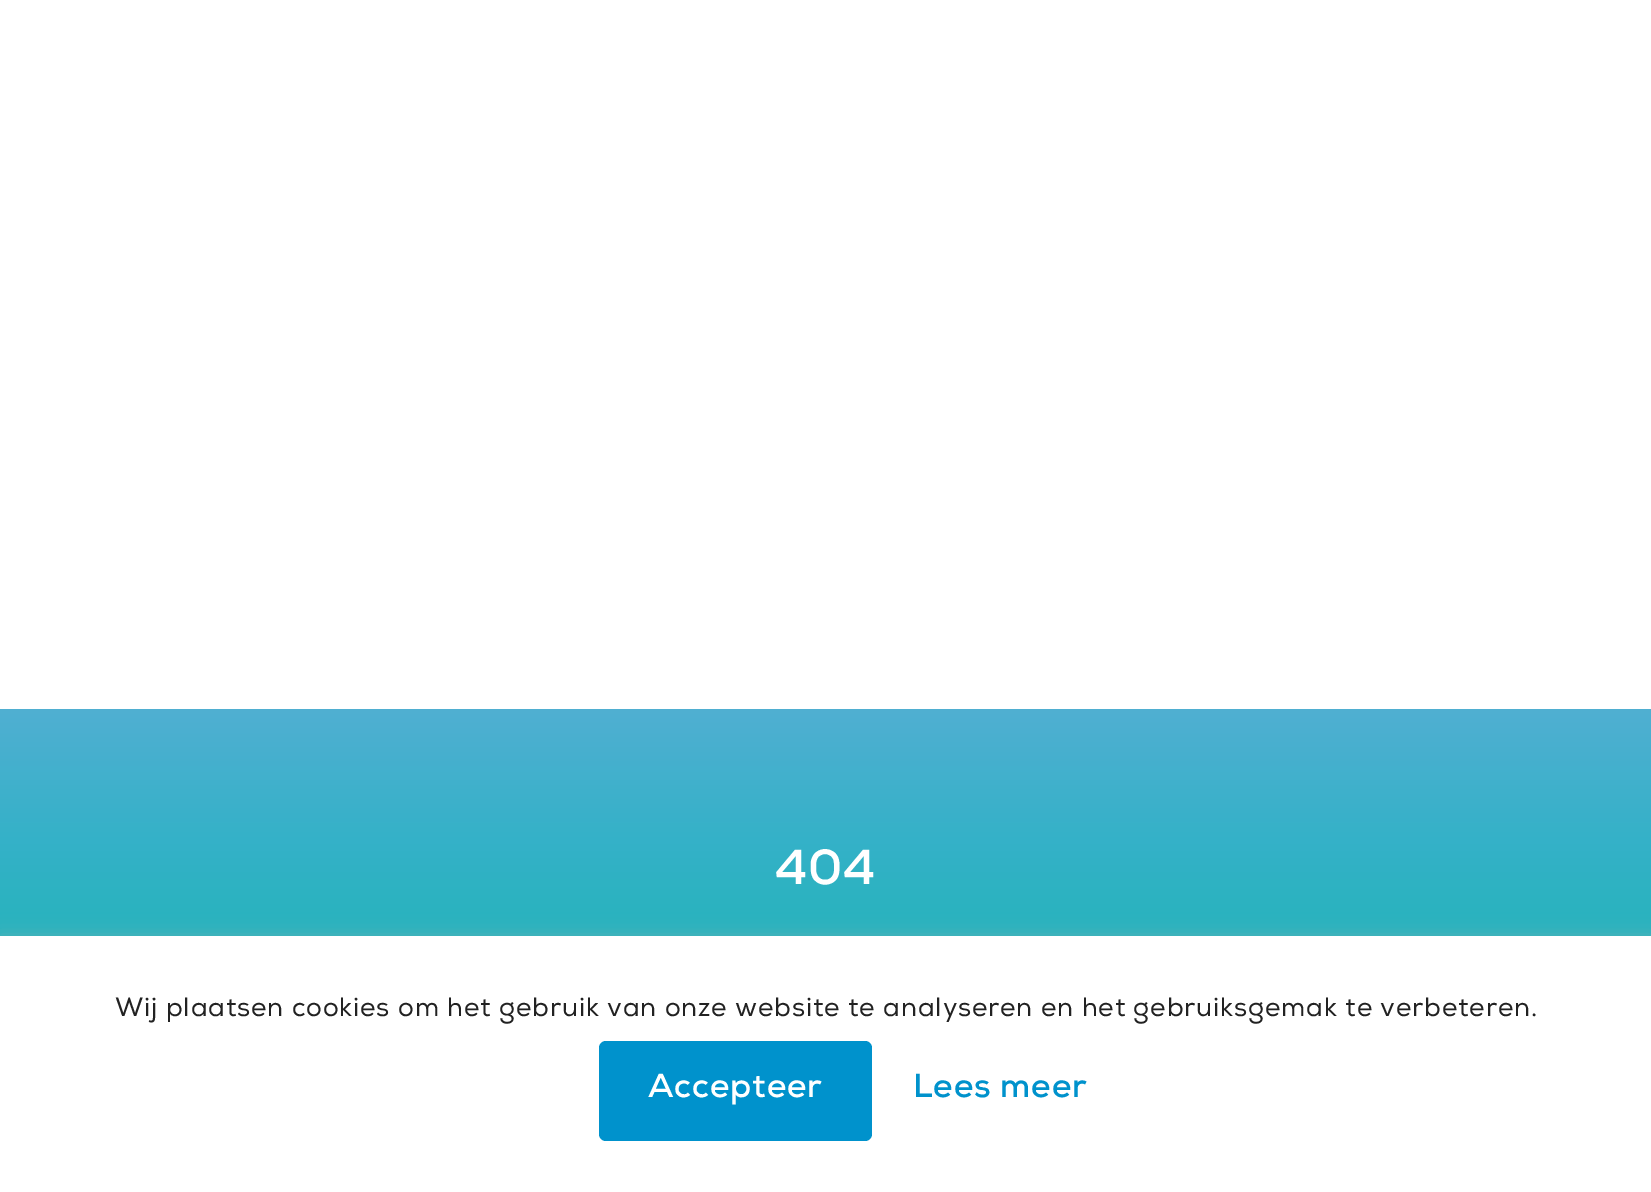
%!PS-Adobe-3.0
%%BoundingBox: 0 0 1651 1192
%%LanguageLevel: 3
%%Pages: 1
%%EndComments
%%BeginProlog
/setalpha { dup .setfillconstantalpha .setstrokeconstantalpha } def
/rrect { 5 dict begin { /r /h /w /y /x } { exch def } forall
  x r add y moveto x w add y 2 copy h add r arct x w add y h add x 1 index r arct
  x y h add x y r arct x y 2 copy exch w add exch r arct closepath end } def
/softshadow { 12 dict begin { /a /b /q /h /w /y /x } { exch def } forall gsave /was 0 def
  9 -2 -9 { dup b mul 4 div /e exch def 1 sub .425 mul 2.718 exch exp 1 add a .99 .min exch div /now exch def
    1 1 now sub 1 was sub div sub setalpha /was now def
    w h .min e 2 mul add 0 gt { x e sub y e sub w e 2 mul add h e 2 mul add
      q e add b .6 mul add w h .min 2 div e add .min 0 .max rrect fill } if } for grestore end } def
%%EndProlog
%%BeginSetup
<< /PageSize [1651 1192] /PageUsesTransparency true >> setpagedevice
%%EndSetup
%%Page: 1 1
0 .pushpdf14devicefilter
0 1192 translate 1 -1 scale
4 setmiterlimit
1 setgray
0 0 1651 1192 rectfill
gsave newpath 0 709 moveto 1651 709 lineto 1651 936 lineto 0 936 lineto closepath clip newpath
<< /ShadingType 2 /ColorSpace /DeviceRGB /Coords [826 709 826 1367] /Extend [true true] /Function << /FunctionType 3 /Domain [0 1] /Functions [<< /FunctionType 2 /Domain [0 1] /C0 [0.314 0.686 0.824] /C1 [0.204 0.694 0.784] /N 1 >> << /FunctionType 2 /Domain [0 1] /C0 [0.204 0.694 0.784] /C1 [0.137 0.702 0.725] /N 1 >> << /FunctionType 2 /Domain [0 1] /C0 [0.137 0.702 0.725] /C1 [0.176 0.702 0.647] /N 1 >> << /FunctionType 2 /Domain [0 1] /C0 [0.176 0.702 0.647] /C1 [0.275 0.698 0.561] /N 1 >> << /FunctionType 2 /Domain [0 1] /C0 [0.275 0.698 0.561] /C1 [0.373 0.686 0.471] /N 1 >>] /Bounds [0.2 0.4 0.6 0.8] /Encode [0 1 0 1 0 1 0 1 0 1] >> >> shfill grestore
0.675 0.671 0.671 setrgbcolor
0 935 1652 257 0 9 0.3 softshadow
1 setgray
0 936 1651 256 rectfill
0 0.573 0.8 setrgbcolor
599 1041 273 100 7 rrect fill
/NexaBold-Bold [49 0 0 -49 0 0] selectfont
1 setgray
775 884 moveto 0.88 0 (404) ashow
/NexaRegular-Regular [26.25 0 0 -26.25 0 0] selectfont
0.133 setgray
115 1016 moveto 0.88 0 (Wij plaatsen cookies om het gebruik van onze website te analyseren en het gebruiksgemak te verbeteren.) ashow
/NexaBold-Bold [33.25 0 0 -33.25 0 0] selectfont
1 setgray
648 1097 moveto 0.88 0 (Accepteer) ashow
0 0.573 0.8 setrgbcolor
913 1097 moveto 0.88 0 (Lees meer) ashow
.poppdf14devicefilter showpage
%%EOF
